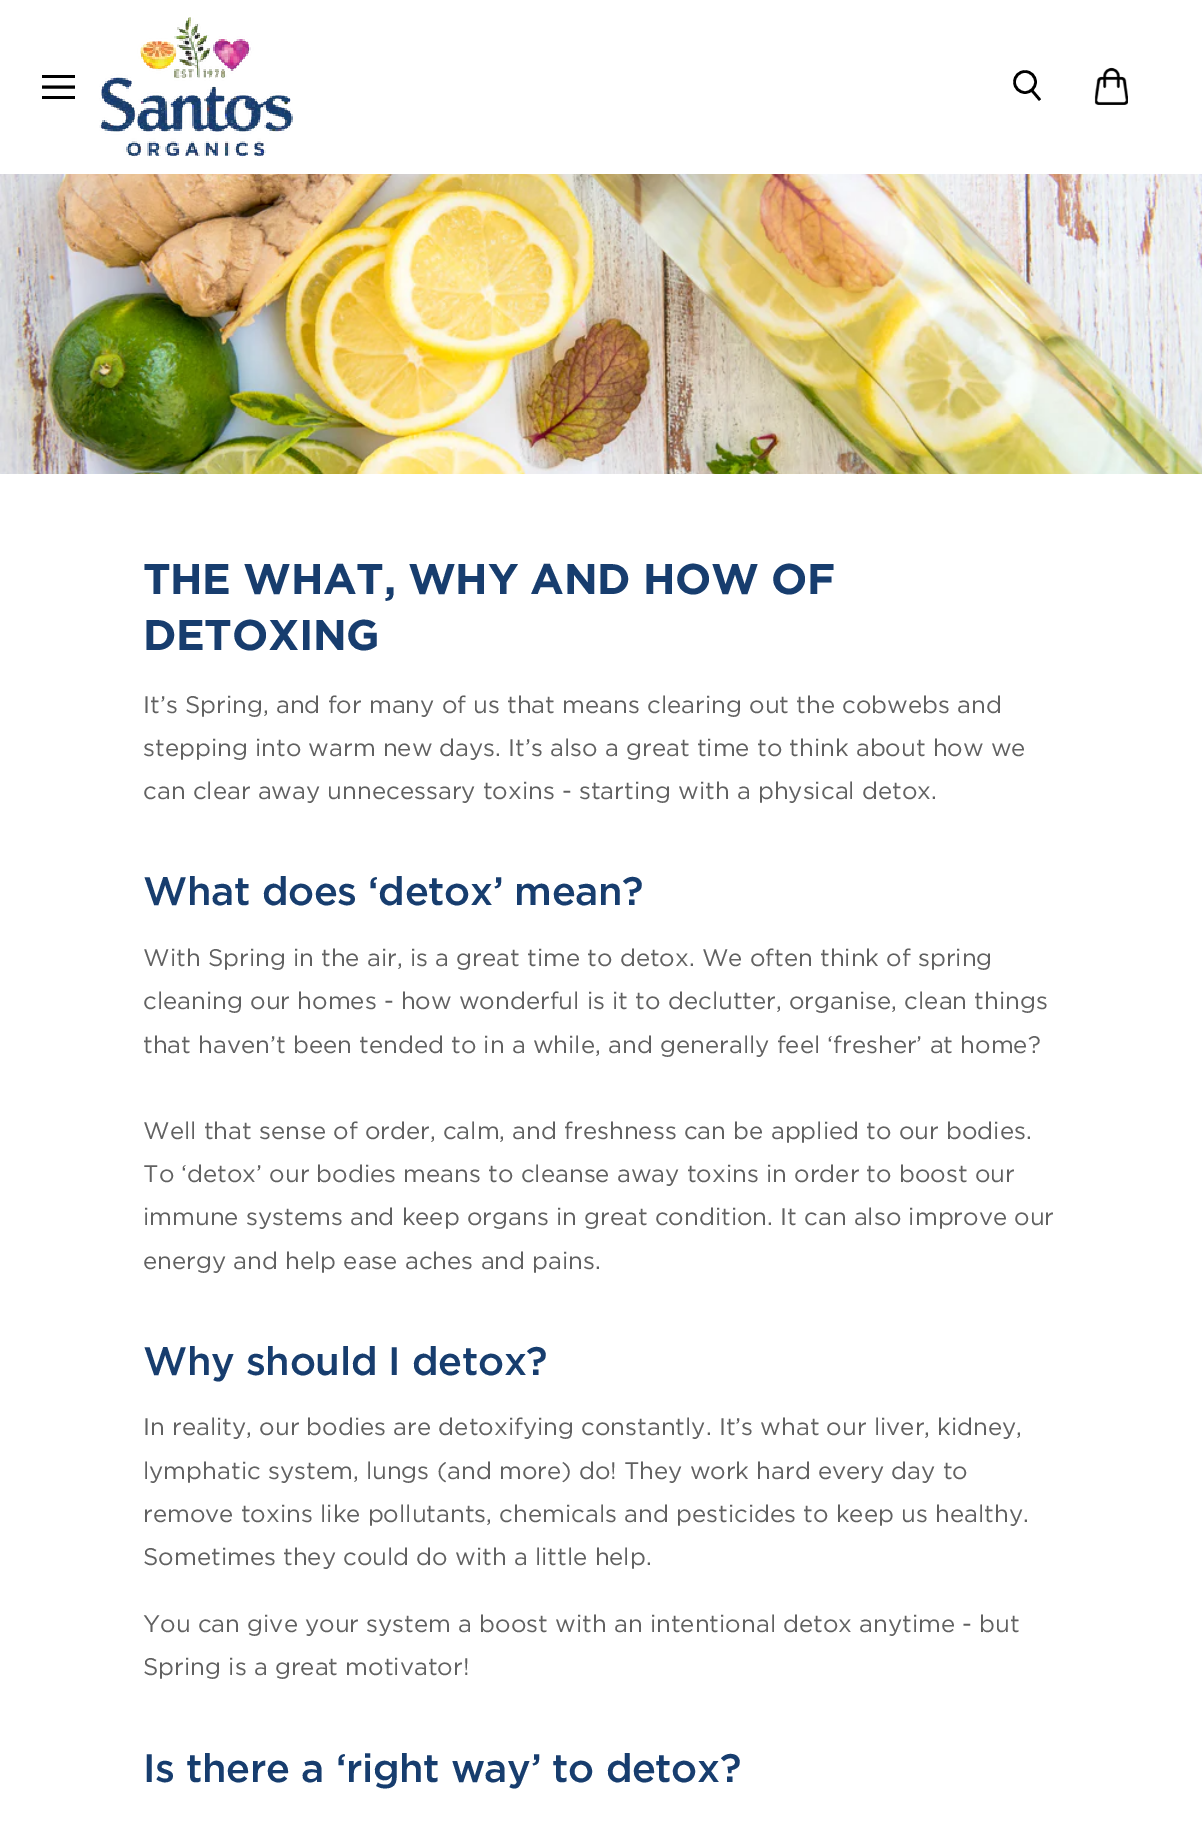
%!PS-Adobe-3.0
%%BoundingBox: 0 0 1202 1830
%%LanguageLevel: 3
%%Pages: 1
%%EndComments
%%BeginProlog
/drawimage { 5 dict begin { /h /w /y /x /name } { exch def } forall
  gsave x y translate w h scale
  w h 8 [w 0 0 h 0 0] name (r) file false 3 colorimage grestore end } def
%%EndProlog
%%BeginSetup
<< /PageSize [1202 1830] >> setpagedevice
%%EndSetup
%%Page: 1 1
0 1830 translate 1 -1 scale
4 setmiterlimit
1 setgray
0 0 1202 1830 rectfill
0 setgray
42 75 33 3 rectfill
3 setlinewidth
2 setlinecap
1 setlinejoin
newpath 73.5 87 moveto 43.5 87 lineto stroke
42 96 33 3 rectfill
(images/1.raw) 99 17 194 141 drawimage
2.6 setlinewidth
0 setlinecap
0 setlinejoin
newpath 1040 100 moveto 1031.5 90 lineto stroke
newpath 1025 82 10.5 0 360 arc closepath stroke
(images/2.raw) 1094 67 34 38 drawimage
(images/3.raw) 0 174 1202 300 drawimage
/Gotham-Bold [42.8 0 0 -42.8 0 0] selectfont
0.09 0.239 0.431 setrgbcolor
143 594 moveto -0.4 0 (THE WHAT, WHY AND HOW OF) ashow
143 650 moveto -0.4 0 (DETOXING) ashow
/Gotham-Regular [24 0 0 -24 0 0] selectfont
0.38 setgray
143 713 moveto (It’s Spring, and for many of us that means clearing out the cobwebs and) show
143 756 moveto (stepping into warm new days. It’s also a great time to think about how we) show
143 799 moveto (can clear away unnecessary toxins - starting with a physical detox.) show
/Gotham-Medium [39.75 0 0 -39.75 0 0] selectfont
0.09 0.239 0.431 setrgbcolor
143 905 moveto -0.4 0 (What does ‘detox’ mean?) ashow
/Gotham-Regular [24 0 0 -24 0 0] selectfont
0.38 setgray
143 966 moveto (With Spring in the air, is a great time to detox. We often think of spring) show
143 1009 moveto (cleaning our homes - how wonderful is it to declutter, organise, clean things) show
143 1053 moveto (that haven’t been tended to in a while, and generally feel ‘fresher’ at home?) show
143 1139 moveto (Well that sense of order, calm, and freshness can be applied to our bodies.) show
143 1182 moveto (To ‘detox’ our bodies means to cleanse away toxins in order to boost our) show
143 1225 moveto (immune systems and keep organs in great condition. It can also improve our) show
143 1269 moveto (energy and help ease aches and pains.) show
/Gotham-Medium [39.75 0 0 -39.75 0 0] selectfont
0.09 0.239 0.431 setrgbcolor
143 1375 moveto -0.4 0 (Why should I detox?) ashow
/Gotham-Regular [24 0 0 -24 0 0] selectfont
0.38 setgray
143 1435 moveto (In reality, our bodies are detoxifying constantly. It’s what our liver, kidney,) show
143 1479 moveto (lymphatic system, lungs \(and more\) do! They work hard every day to) show
143 1522 moveto (remove toxins like pollutants, chemicals and pesticides to keep us healthy.) show
143 1565 moveto (Sometimes they could do with a little help.) show
143 1632 moveto (You can give your system a boost with an intentional detox anytime - but) show
143 1675 moveto (Spring is a great motivator!) show
/Gotham-Medium [39.75 0 0 -39.75 0 0] selectfont
0.09 0.239 0.431 setrgbcolor
143 1782 moveto -0.4 0 (Is there a ‘right way’ to detox?) ashow
showpage
%%EOF
